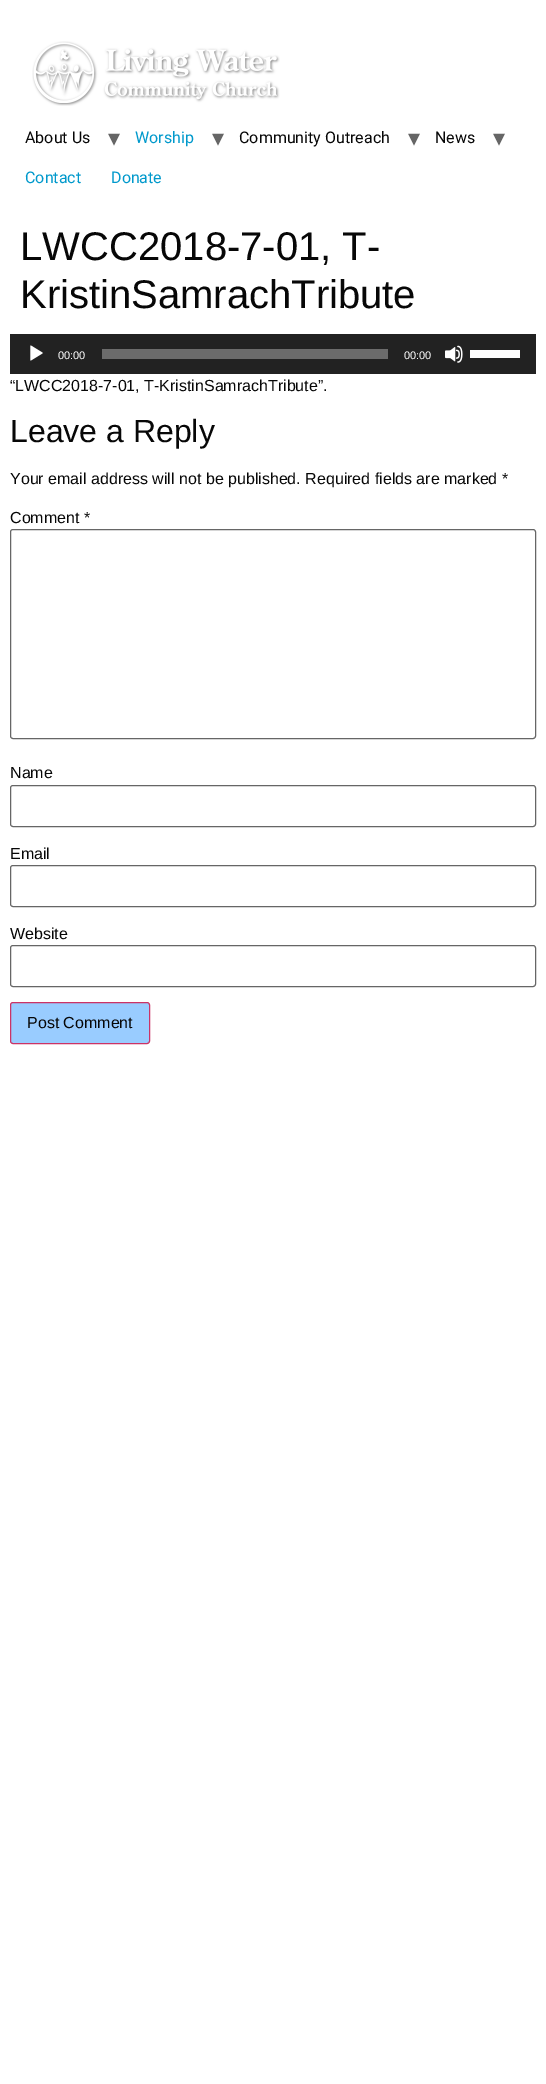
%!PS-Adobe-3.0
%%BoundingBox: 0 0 546 2084
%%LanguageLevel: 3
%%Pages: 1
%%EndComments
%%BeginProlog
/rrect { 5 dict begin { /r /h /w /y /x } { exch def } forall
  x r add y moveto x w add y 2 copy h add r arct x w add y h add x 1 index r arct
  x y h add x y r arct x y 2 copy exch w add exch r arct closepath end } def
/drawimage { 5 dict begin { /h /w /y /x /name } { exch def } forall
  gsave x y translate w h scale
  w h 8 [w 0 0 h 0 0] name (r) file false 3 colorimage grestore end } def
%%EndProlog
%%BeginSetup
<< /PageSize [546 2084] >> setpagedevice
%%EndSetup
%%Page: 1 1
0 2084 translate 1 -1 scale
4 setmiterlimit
1 setgray
0 0 546 2084 rectfill
(images/1.raw) 32 41 248 65 drawimage
0.133 setgray
10 334 526 40 rectfill
(images/2.raw) 30 345 13 16 drawimage
0.42 setgray
102 349 286 10 rectfill
(images/3.raw) 445 345 18 18 drawimage
1 setgray
470 350 50 8 rectfill
0.4 setgray
10.5 529.5 525 209 2.5 rrect stroke
10.5 785.5 525 41 2.5 rrect stroke
10.5 865.5 525 41 2.5 rrect stroke
10.5 945.5 525 41 2.5 rrect stroke
0.6 0.8 1 setrgbcolor
10.5 1002.5 139 41 2.5 rrect gsave fill grestore
0.8 0.2 0.4 setrgbcolor
stroke
/Roboto-Regular [16 0 0 -16 0 0] selectfont
0.027 setgray
25 143 moveto (About Us) show
/DejaVuSans-Regular [24 0 0 -24 0 0] selectfont
0.4 setgray
108 146 moveto (▾) show
/Roboto-Regular [16 0 0 -16 0 0] selectfont
0 0.6 0.8 setrgbcolor
135 143 moveto (Worship) show
/DejaVuSans-Regular [24 0 0 -24 0 0] selectfont
0.4 setgray
212 146 moveto (▾) show
/Roboto-Regular [16 0 0 -16 0 0] selectfont
0.027 setgray
239 143 moveto (Community Outreach) show
/DejaVuSans-Regular [24 0 0 -24 0 0] selectfont
0.4 setgray
408 146 moveto (▾) show
/Roboto-Regular [16 0 0 -16 0 0] selectfont
0.027 setgray
435 143 moveto (News) show
/DejaVuSans-Regular [24 0 0 -24 0 0] selectfont
0.4 setgray
493 146 moveto (▾) show
/Roboto-Regular [16 0 0 -16 0 0] selectfont
0 0.6 0.8 setrgbcolor
25 183 moveto (Contact) show
111 183 moveto (Donate) show
/LiberationSans-Regular [40 0 0 -40 0 0] selectfont
0.027 setgray
20 260 moveto (LWCC2018-7-01, T-) show
20 308 moveto (KristinSamrachTribute) show
/LiberationSans-Regular [11 0 0 -11 0 0] selectfont
1 setgray
58 359 moveto (00:00) show
404 359 moveto (00:00) show
/LiberationSans-Regular [16 0 0 -16 0 0] selectfont
0.027 setgray
10 391 moveto (“LWCC2018-7-01, T-KristinSamrachTribute”.) show
/LiberationSans-Regular [32 0 0 -32 0 0] selectfont
10 442 moveto (Leave a Reply) show
/LiberationSans-Regular [16 0 0 -16 0 0] selectfont
10 484 moveto (Your email address will not be published. Required fields are marked *) show
10 523 moveto (Comment *) show
10 778 moveto (Name) show
10 859 moveto (Email) show
10 939 moveto (Website) show
27 1028 moveto (Post Comment) show
showpage
%%EOF
